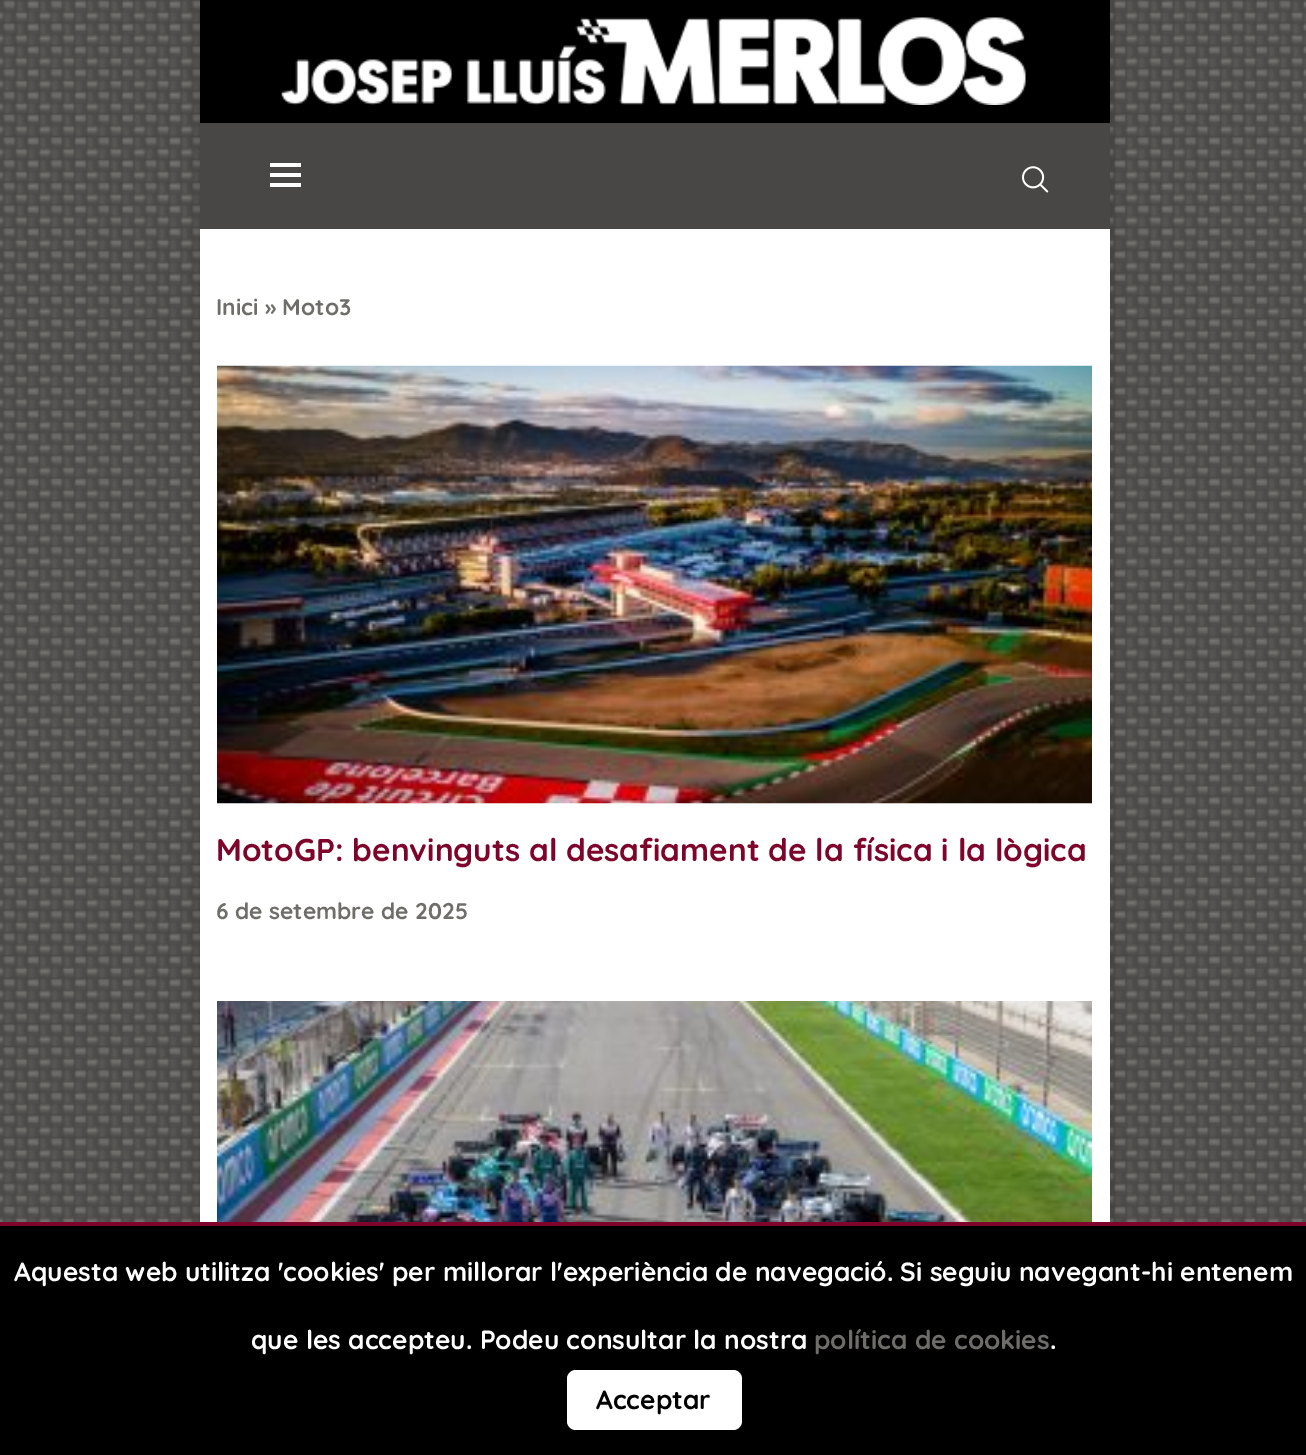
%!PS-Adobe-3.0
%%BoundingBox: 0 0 1306 1455
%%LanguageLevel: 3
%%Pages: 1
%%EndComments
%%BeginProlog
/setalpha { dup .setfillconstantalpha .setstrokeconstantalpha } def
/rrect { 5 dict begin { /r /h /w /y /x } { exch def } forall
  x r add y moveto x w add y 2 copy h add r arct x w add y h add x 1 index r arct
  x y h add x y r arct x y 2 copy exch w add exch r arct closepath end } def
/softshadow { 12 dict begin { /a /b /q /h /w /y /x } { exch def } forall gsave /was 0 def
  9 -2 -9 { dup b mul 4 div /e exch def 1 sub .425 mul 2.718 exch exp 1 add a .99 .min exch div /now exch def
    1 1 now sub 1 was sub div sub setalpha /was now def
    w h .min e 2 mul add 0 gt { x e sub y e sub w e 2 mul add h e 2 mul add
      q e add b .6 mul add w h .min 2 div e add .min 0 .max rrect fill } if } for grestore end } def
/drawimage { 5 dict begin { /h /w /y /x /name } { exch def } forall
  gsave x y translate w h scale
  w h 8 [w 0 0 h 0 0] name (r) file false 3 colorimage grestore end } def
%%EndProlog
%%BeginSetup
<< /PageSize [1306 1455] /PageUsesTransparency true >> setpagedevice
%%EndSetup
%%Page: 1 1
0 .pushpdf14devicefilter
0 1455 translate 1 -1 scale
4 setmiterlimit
1 setgray
0 0 1306 1455 rectfill
(images/1.raw) 0 0 1306 1222 drawimage
0 setgray
200 9 910 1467 0 7 0.2 softshadow
1 setgray
200 229 910 993 rectfill
0 setgray
200 0 910 123 rectfill
(images/2.raw) 281 17 745 88 drawimage
0.282 0.278 0.271 setrgbcolor
200 123 910 106 rectfill
1 setgray
270 163 31 4 rectfill
270 173 31 4 rectfill
270 183 31 4 rectfill
(images/3.raw) 1022 166 27 27 drawimage
(images/4.raw) 217 365 875 439 drawimage
(images/5.raw) 217 1001 875 221 drawimage
0 setgray
0 1226 1306 229 rectfill
0.494 0.016 0.169 setrgbcolor
0 1222 1306 4 rectfill
1 setgray
567 1370 175 60 9 rrect fill
/Quicksand-Bold [22.75 0 0 -22.75 0 0] selectfont
0.431 0.427 0.412 setrgbcolor
216 315 moveto (Inici » Moto3) show
/Quicksand-Bold [31.5 0 0 -31.5 0 0] selectfont
0.494 0.016 0.169 setrgbcolor
216 861 moveto (MotoGP: benvinguts al desafiament de la física i la lògica) show
/Quicksand-Bold [22.75 0 0 -22.75 0 0] selectfont
0.431 0.427 0.412 setrgbcolor
216 919 moveto (6 de setembre de 2025) show
/Quicksand-Bold [26.25 0 0 -26.25 0 0] selectfont
1 setgray
14 1281 moveto (Aquesta web utilitza 'cookies' per millorar l'experiència de navegació. Si seguiu navegant-hi entenem) show
251 1349 moveto (que les accepteu. Podeu consultar la nostra) show
0.431 0.427 0.412 setrgbcolor
814 1349 moveto (política de cookies) show
1 setgray
1050 1349 moveto (.) show
0 setgray
596 1409 moveto (Acceptar) show
.poppdf14devicefilter showpage
%%EOF
